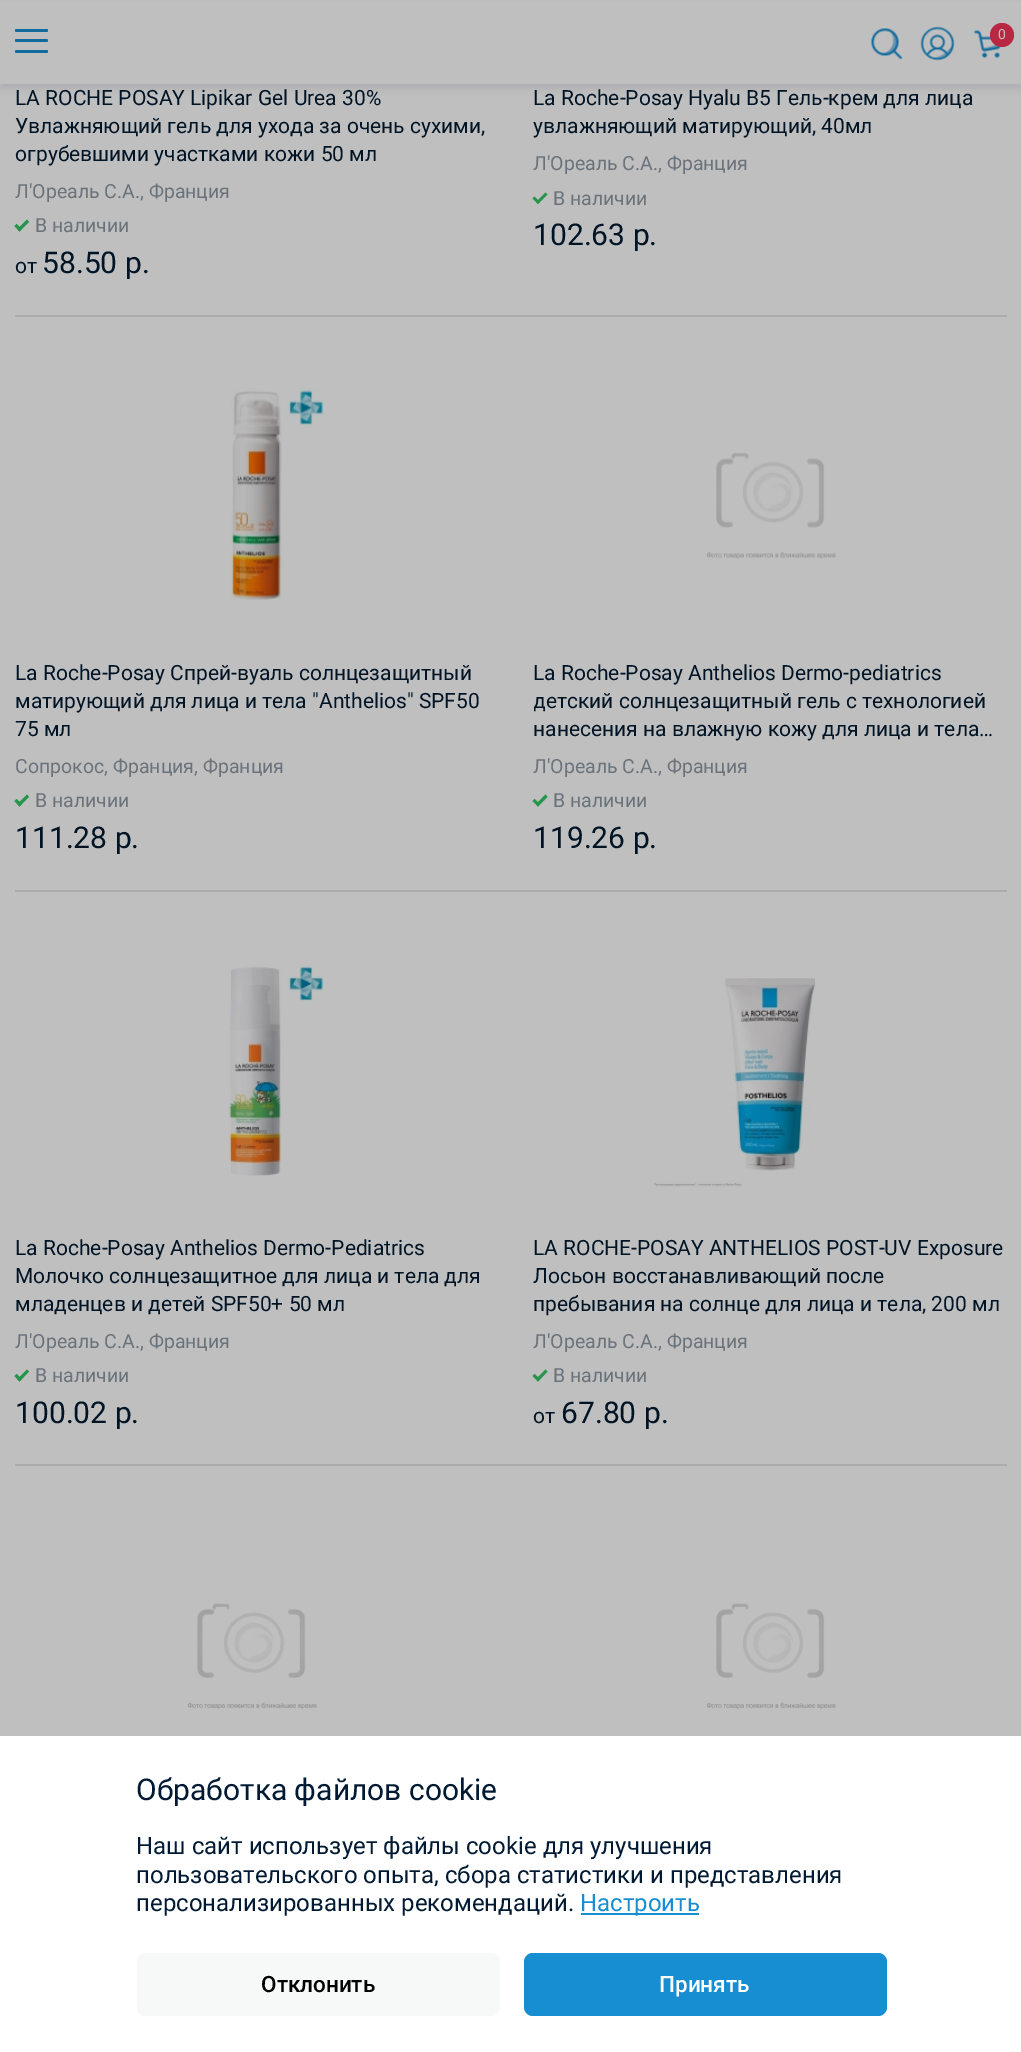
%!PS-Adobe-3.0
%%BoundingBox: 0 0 1021 2052
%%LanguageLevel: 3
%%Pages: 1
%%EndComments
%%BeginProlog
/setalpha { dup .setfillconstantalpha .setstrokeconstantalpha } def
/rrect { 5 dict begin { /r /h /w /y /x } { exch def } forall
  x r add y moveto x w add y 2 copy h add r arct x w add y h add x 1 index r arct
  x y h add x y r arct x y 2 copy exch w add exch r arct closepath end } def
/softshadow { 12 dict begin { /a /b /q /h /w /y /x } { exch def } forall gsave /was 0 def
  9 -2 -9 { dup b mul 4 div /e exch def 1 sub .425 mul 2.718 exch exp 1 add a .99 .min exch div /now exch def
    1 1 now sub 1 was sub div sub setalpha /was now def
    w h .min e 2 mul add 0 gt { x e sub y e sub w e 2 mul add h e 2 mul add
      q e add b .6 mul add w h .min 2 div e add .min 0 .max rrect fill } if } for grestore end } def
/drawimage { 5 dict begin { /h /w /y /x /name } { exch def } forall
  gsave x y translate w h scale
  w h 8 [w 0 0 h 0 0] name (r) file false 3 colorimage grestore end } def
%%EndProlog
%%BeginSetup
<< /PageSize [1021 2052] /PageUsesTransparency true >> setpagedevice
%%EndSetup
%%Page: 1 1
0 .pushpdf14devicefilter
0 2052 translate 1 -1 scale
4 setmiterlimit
0.749 setgray
0 0 1021 2052 rectfill
0.004 0.078 0.149 setrgbcolor
0 5 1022 84 0 3 0.08 softshadow
0.749 setgray
0 2 1021 82 rectfill
0.067 0.42 0.616 setrgbcolor
15 29 33 3 1.5 rrect fill
15 39 33 3 1.5 rrect fill
15 50 33 3 1.5 rrect fill
(images/1.raw) 871 28 32 32 drawimage
(images/2.raw) 920 26 35 35 drawimage
(images/3.raw) 974 30 27 28 drawimage
0.725 0.157 0.259 setrgbcolor
newpath 1002 35 12 0 360 arc closepath fill
0.663 0.671 0.678 setrgbcolor
15 315 992 2 rectfill
0.149 0.58 0.29 setrgbcolor
newpath 17.5 229 moveto 27 219.5 lineto 29 222 lineto 19.5 231.5 lineto closepath fill
newpath 14.5 226 moveto 16.5 224 lineto 22 229 lineto 19.5 231.5 lineto closepath fill
newpath 536 202 moveto 545.5 192.5 lineto 547.5 194.5 lineto 538 204 lineto closepath fill
newpath 532.5 198.5 moveto 534.5 196.5 lineto 540 202 lineto 538 204 lineto closepath fill
0.663 0.671 0.678 setrgbcolor
15 890 992 2 rectfill
(images/4.raw) 230 389 94 211 drawimage
0.149 0.58 0.29 setrgbcolor
newpath 17.5 804 moveto 27 794.5 lineto 29 797 lineto 19.5 806.5 lineto closepath fill
newpath 14.5 801 moveto 16.5 799 lineto 22 804 lineto 19.5 806.5 lineto closepath fill
(images/5.raw) 706 452 130 108 drawimage
newpath 536 804 moveto 545.5 794.5 lineto 547.5 797 lineto 538 806.5 lineto closepath fill
newpath 532.5 801 moveto 534.5 799 lineto 540 804 lineto 538 806.5 lineto closepath fill
0.663 0.671 0.678 setrgbcolor
15 1464 992 2 rectfill
(images/6.raw) 228 965 96 211 drawimage
0.149 0.58 0.29 setrgbcolor
newpath 17.5 1379 moveto 27 1369.5 lineto 29 1371.5 lineto 19.5 1381.5 lineto closepath fill
newpath 14.5 1376 moveto 16.5 1374 lineto 22 1379 lineto 19.5 1381.5 lineto closepath fill
(images/7.raw) 653 978 162 209 drawimage
newpath 536 1379 moveto 545.5 1369.5 lineto 547.5 1371.5 lineto 538 1381.5 lineto closepath fill
newpath 532.5 1376 moveto 534.5 1374 lineto 540 1379 lineto 538 1381.5 lineto closepath fill
(images/8.raw) 187 1603 130 107 drawimage
(images/8.raw) 706 1603 130 107 drawimage
1 setgray
0 1736 1021 316 rectfill
0.09 0.557 0.82 setrgbcolor
581 1913 118 2 rectfill
0.969 0.973 0.973 setrgbcolor
137 1953 363 63 9 rrect fill
0.09 0.557 0.82 setrgbcolor
524 1953 363 63 9 rrect fill
/Roboto-Regular [14 0 0 -14 0 0] selectfont
0.749 setgray
998 39 moveto (0) show
/Roboto-Regular [21 0 0 -21 0 0] selectfont
0.004 0.078 0.149 setrgbcolor
15 105 moveto (LA ROCHE POSAY Lipikar Gel Urea 30%) show
15 133 moveto (Увлажняющий гель для ухода за очень сухими,) show
15 161 moveto (огрубевшими участками кожи 50 мл) show
/Roboto-Regular [19.5 0 0 -19.5 0 0] selectfont
0.416 0.447 0.478 setrgbcolor
15 198 moveto (Л'Ореаль С.А., Франция) show
35 232 moveto (В наличии) show
/Roboto-Regular [21 0 0 -21 0 0] selectfont
0.004 0.078 0.149 setrgbcolor
15 273 moveto (от) show
/Roboto-Regular [30 0 0 -30 0 0] selectfont
42 273 moveto (58.50 р.) show
/Roboto-Regular [21 0 0 -21 0 0] selectfont
533 105 moveto (La Roche-Posay Hyalu B5 Гель-крем для лица) show
533 133 moveto (увлажняющий матирующий, 40мл) show
/Roboto-Regular [19.5 0 0 -19.5 0 0] selectfont
0.416 0.447 0.478 setrgbcolor
533 170 moveto (Л'Ореаль С.А., Франция) show
553 205 moveto (В наличии) show
/Roboto-Regular [30 0 0 -30 0 0] selectfont
0.004 0.078 0.149 setrgbcolor
533 245 moveto (102.63 р.) show
/Roboto-Regular [21 0 0 -21 0 0] selectfont
15 680 moveto (La Roche-Posay Спрей-вуаль солнцезащитный) show
15 708 moveto (матирующий для лица и тела "Anthelios" SPF50) show
15 736 moveto (75 мл) show
/Roboto-Regular [19.5 0 0 -19.5 0 0] selectfont
0.416 0.447 0.478 setrgbcolor
15 773 moveto (Сопрокос, Франция, Франция) show
35 807 moveto (В наличии) show
/Roboto-Regular [30 0 0 -30 0 0] selectfont
0.004 0.078 0.149 setrgbcolor
15 848 moveto (111.28 р.) show
/Roboto-Regular [21 0 0 -21 0 0] selectfont
533 680 moveto (La Roche-Posay Anthelios Dermo-pediatrics) show
gsave
534 659 473 84 rectclip
533 708 moveto (детский солнцезащитный гель с технологией) show
grestore
533 736 moveto (нанесения на влажную кожу для лица и тела…) show
/Roboto-Regular [19.5 0 0 -19.5 0 0] selectfont
0.416 0.447 0.478 setrgbcolor
533 773 moveto (Л'Ореаль С.А., Франция) show
553 807 moveto (В наличии) show
/Roboto-Regular [30 0 0 -30 0 0] selectfont
0.004 0.078 0.149 setrgbcolor
533 848 moveto (119.26 р.) show
/Roboto-Regular [21 0 0 -21 0 0] selectfont
15 1255 moveto (La Roche-Posay Anthelios Dermo-Pediatrics) show
15 1283 moveto (Молочко солнцезащитное для лица и тела для) show
15 1311 moveto (младенцев и детей SPF50+ 50 мл) show
/Roboto-Regular [19.5 0 0 -19.5 0 0] selectfont
0.416 0.447 0.478 setrgbcolor
15 1348 moveto (Л'Ореаль С.А., Франция) show
35 1382 moveto (В наличии) show
/Roboto-Regular [30 0 0 -30 0 0] selectfont
0.004 0.078 0.149 setrgbcolor
15 1423 moveto (100.02 р.) show
/Roboto-Regular [21 0 0 -21 0 0] selectfont
533 1255 moveto (LA ROCHE-POSAY ANTHELIOS POST-UV Exposure) show
533 1283 moveto (Лосьон восстанавливающий после) show
533 1311 moveto (пребывания на солнце для лица и тела, 200 мл) show
/Roboto-Regular [19.5 0 0 -19.5 0 0] selectfont
0.416 0.447 0.478 setrgbcolor
533 1348 moveto (Л'Ореаль С.А., Франция) show
553 1382 moveto (В наличии) show
/Roboto-Regular [21 0 0 -21 0 0] selectfont
0.004 0.078 0.149 setrgbcolor
533 1423 moveto (от) show
/Roboto-Regular [30 0 0 -30 0 0] selectfont
561 1423 moveto (67.80 р.) show
0.004 0.102 0.2 setrgbcolor
136 1800 moveto (Обработка файлов cookie) show
/Roboto-Regular [24 0 0 -24 0 0] selectfont
136 1854 moveto (Наш сайт использует файлы cookie для улучшения) show
136 1883 moveto (пользовательского опыта, сбора статистики и представления) show
136 1911 moveto (персонализированных рекомендаций.) show
0.09 0.557 0.82 setrgbcolor
580 1911 moveto (Настроить) show
/Roboto-Medium [22.5 0 0 -22.5 0 0] selectfont
0 setgray
261 1992 moveto (Отклонить) show
1 setgray
659 1992 moveto (Принять) show
.poppdf14devicefilter showpage
%%EOF
